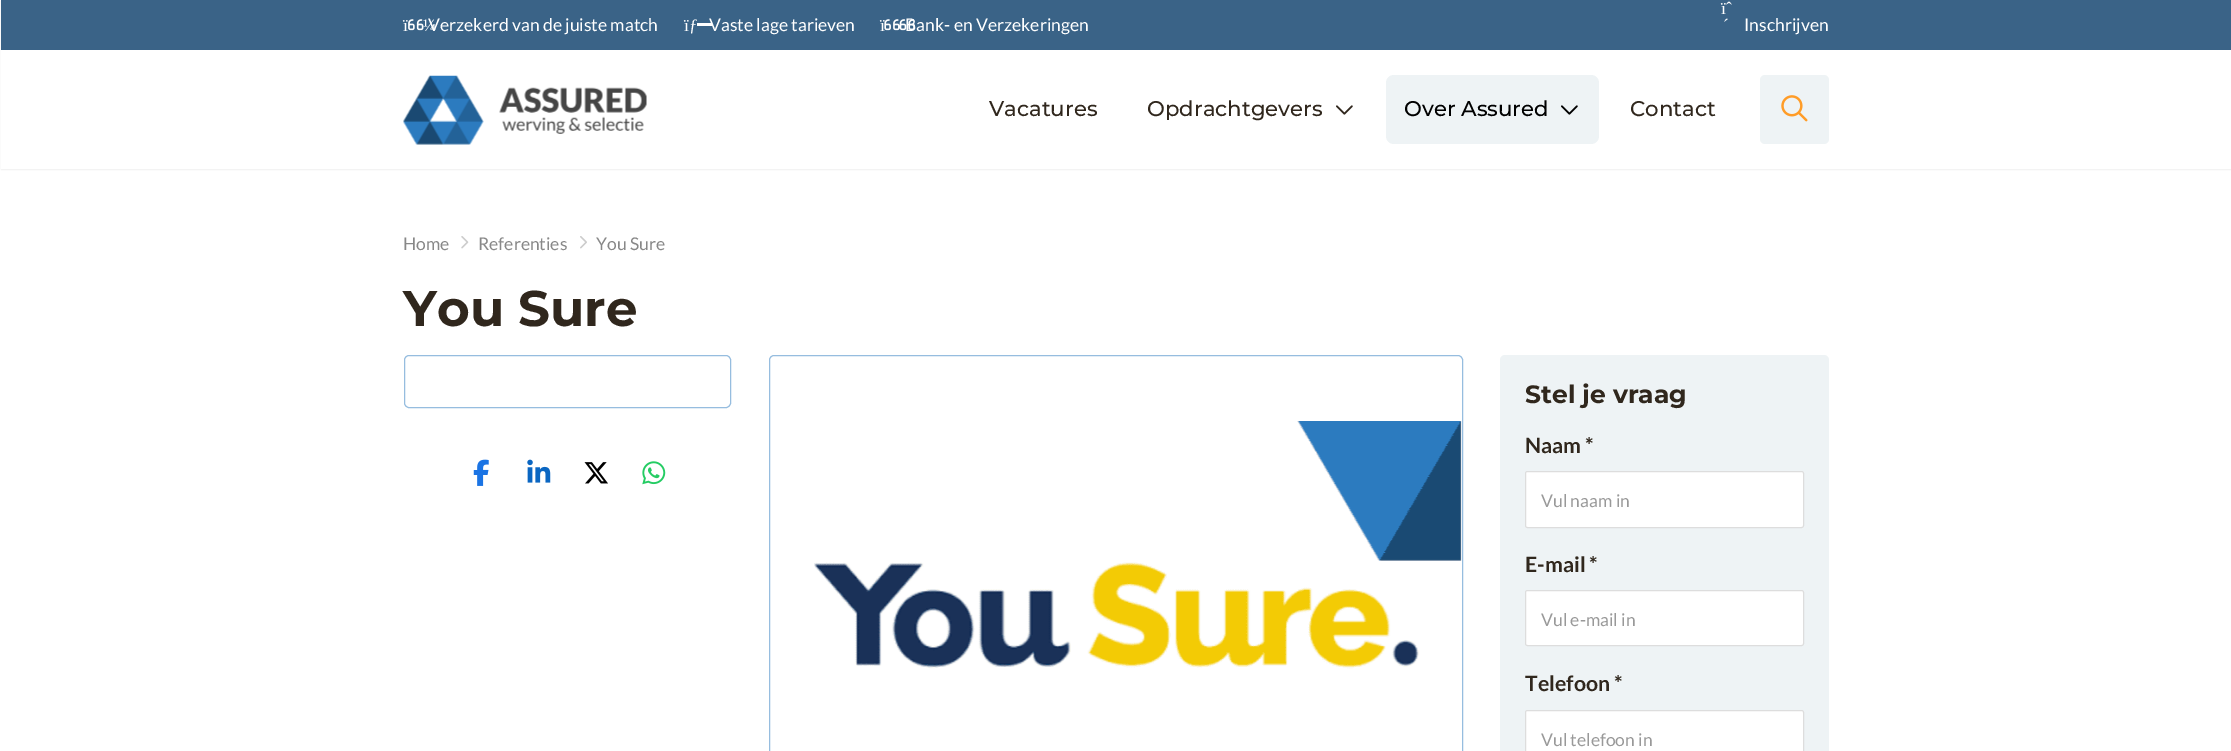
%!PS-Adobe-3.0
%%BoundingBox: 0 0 2231 751
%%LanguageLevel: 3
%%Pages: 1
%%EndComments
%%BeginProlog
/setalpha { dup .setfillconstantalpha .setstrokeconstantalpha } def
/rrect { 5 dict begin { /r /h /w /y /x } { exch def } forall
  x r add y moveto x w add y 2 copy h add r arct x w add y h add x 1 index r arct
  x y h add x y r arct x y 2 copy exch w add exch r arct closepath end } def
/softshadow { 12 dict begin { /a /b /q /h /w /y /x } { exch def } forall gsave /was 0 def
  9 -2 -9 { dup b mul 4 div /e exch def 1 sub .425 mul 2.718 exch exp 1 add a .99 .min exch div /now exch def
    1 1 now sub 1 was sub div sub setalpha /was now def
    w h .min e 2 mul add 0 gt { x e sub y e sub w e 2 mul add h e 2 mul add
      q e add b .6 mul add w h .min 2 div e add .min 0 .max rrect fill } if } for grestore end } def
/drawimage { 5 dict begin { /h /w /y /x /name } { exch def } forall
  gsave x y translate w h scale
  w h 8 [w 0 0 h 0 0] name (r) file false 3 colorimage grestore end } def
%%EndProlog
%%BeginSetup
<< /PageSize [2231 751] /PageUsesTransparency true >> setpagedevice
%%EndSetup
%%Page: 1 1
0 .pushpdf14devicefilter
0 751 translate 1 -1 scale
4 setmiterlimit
1 setgray
0 0 2231 751 rectfill
0 setgray
1 1 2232 169 0 0.5 0.05 softshadow
1 setgray
1 50 2230 119 rectfill
0.227 0.388 0.529 setrgbcolor
1 0 2230 50 rectfill
(images/1.raw) 408 19 16 12 drawimage
1 setgray
697 23 15 3 rectfill
(images/2.raw) 884 19 31 12 drawimage
(images/3.raw) 403 75 244 70 drawimage
(images/4.raw) 1336 105 17 10 drawimage
0.933 0.953 0.961 setrgbcolor
1386 75 213 69 8 rrect fill
(images/5.raw) 1561 105 17 10 drawimage
1760 75 69 69 5 rrect fill
(images/6.raw) 1781 95 27 27 drawimage
(images/7.raw) 461 236 8 13 drawimage
(images/8.raw) 580 236 7 13 drawimage
0.588 0.741 0.875 setrgbcolor
404.5 355.5 326 52 4.5 rrect stroke
(images/9.raw) 473 459 16 27 drawimage
(images/10.raw) 527 459 24 24 drawimage
(images/11.raw) 584 462 24 22 drawimage
(images/12.raw) 642 461 24 24 drawimage
769.5 355.5 693 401 4.5 rrect stroke
(images/13.raw) 814 421 648 248 drawimage
0.933 0.953 0.961 setrgbcolor
1500 355 329 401 5 rrect fill
1 setgray
1525.5 471.5 278 56 2 rrect gsave fill grestore
0.867 setgray
stroke
1 setgray
1525.5 590.5 278 55 2 rrect gsave fill grestore
0.867 setgray
stroke
1 setgray
1525.5 710.5 278 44 2 rrect gsave fill grestore
0.867 setgray
stroke
/LiberationSerif-Regular [17.5 0 0 -17.5 0 0] selectfont
1 setgray
403 31 moveto (ï) show
423 31 moveto (¼) show
/Lato-Regular [17.5 0 0 -17.5 0 0] selectfont
428 31 moveto (Verzekerd van de juiste match) show
/LiberationSerif-Regular [17.5 0 0 -17.5 0 0] selectfont
684 31 moveto (ïƒ) show
/Lato-Regular [17.5 0 0 -17.5 0 0] selectfont
709 31 moveto (Vaste lage tarieven) show
/LiberationSerif-Regular [17.5 0 0 -17.5 0 0] selectfont
880 31 moveto (ï) show
/Lato-Regular [17.5 0 0 -17.5 0 0] selectfont
905 31 moveto (Bank- en Verzekeringen) show
/LiberationSerif-Regular [17.5 0 0 -17.5 0 0] selectfont
1721 14 moveto (ïˆ) show
1723 31 moveto (´) show
/Lato-Regular [17.5 0 0 -17.5 0 0] selectfont
1744 31 moveto (Inschrijven) show
/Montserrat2-Thin [21.25 0 0 -21.25 0 0] selectfont
0.188 0.153 0.114 setrgbcolor
989 116 moveto (Vacatures) show
1147 116 moveto (Opdrachtgevers) show
0 setgray
1404 116 moveto (Over Assured) show
0.188 0.153 0.114 setrgbcolor
1630 116 moveto (Contact) show
/Lato-Regular [17.5 0 0 -17.5 0 0] selectfont
0.533 setgray
403 250 moveto (Home) show
478 250 moveto (Referenties) show
596 250 moveto (You Sure) show
/Montserrat-Thin [50 0 0 -50 0 0] selectfont
0.188 0.153 0.114 setrgbcolor
403 326 moveto (You Sure) show
/Montserrat-Thin [25 0 0 -25 0 0] selectfont
1525 403 moveto (Stel je vraag) show
/Lato-Bold [21.25 0 0 -21.25 0 0] selectfont
1525 453 moveto (Naam *) show
/Lato-Regular [17.5 0 0 -17.5 0 0] selectfont
0.6 setgray
1541 507 moveto (Vul naam in) show
/Lato-Bold [21.25 0 0 -21.25 0 0] selectfont
0.188 0.153 0.114 setrgbcolor
1525 572 moveto (E-mail *) show
/Lato-Regular [17.5 0 0 -17.5 0 0] selectfont
0.6 setgray
1541 626 moveto (Vul e-mail in) show
/Lato-Bold [21.25 0 0 -21.25 0 0] selectfont
0.188 0.153 0.114 setrgbcolor
1525 691 moveto (Telefoon *) show
/Lato-Regular [17.5 0 0 -17.5 0 0] selectfont
0.6 setgray
1541 746 moveto (Vul telefoon in) show
.poppdf14devicefilter showpage
%%EOF
